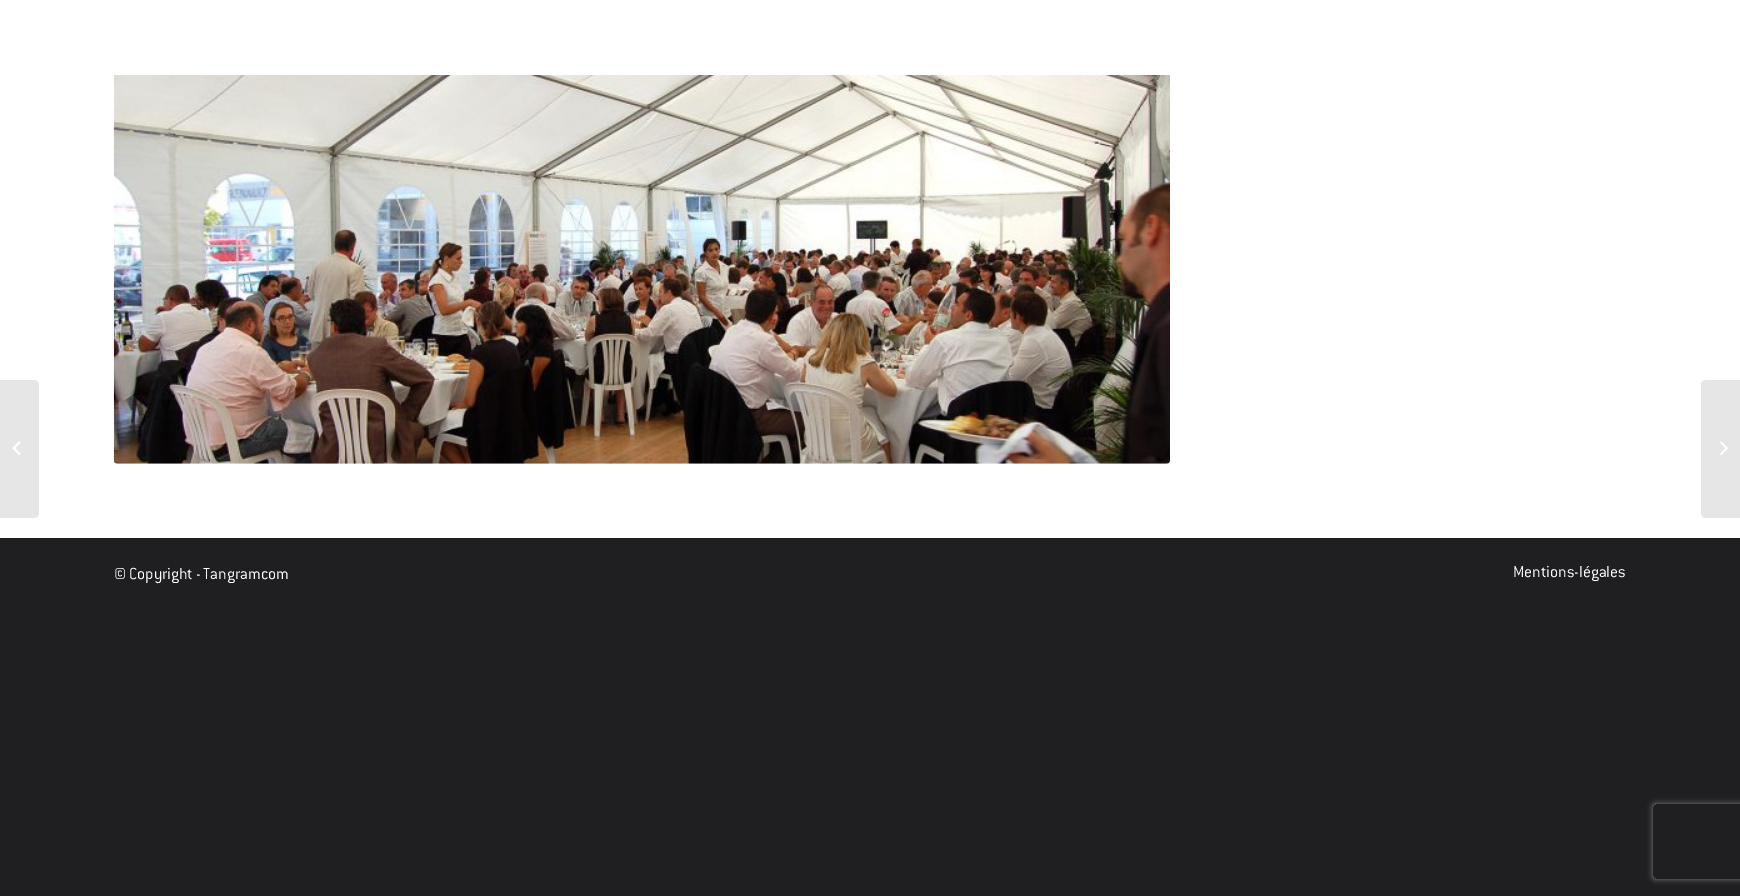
%!PS-Adobe-3.0
%%BoundingBox: 0 0 1740 896
%%LanguageLevel: 3
%%Pages: 1
%%EndComments
%%BeginProlog
/setalpha { dup .setfillconstantalpha .setstrokeconstantalpha } def
/rrect { 5 dict begin { /r /h /w /y /x } { exch def } forall
  x r add y moveto x w add y 2 copy h add r arct x w add y h add x 1 index r arct
  x y h add x y r arct x y 2 copy exch w add exch r arct closepath end } def
/softshadow { 12 dict begin { /a /b /q /h /w /y /x } { exch def } forall gsave /was 0 def
  9 -2 -9 { dup b mul 4 div /e exch def 1 sub .425 mul 2.718 exch exp 1 add a .99 .min exch div /now exch def
    1 1 now sub 1 was sub div sub setalpha /was now def
    w h .min e 2 mul add 0 gt { x e sub y e sub w e 2 mul add h e 2 mul add
      q e add b .6 mul add w h .min 2 div e add .min 0 .max rrect fill } if } for grestore end } def
/drawimage { 5 dict begin { /h /w /y /x /name } { exch def } forall
  gsave x y translate w h scale
  w h 8 [w 0 0 h 0 0] name (r) file false 3 colorimage grestore end } def
%%EndProlog
%%BeginSetup
<< /PageSize [1740 896] /PageUsesTransparency true >> setpagedevice
%%EndSetup
%%Page: 1 1
0 .pushpdf14devicefilter
0 896 translate 1 -1 scale
4 setmiterlimit
0.122 0.118 0.129 setrgbcolor
0 0 1740 896 rectfill
1 setgray
0 0 1740 538 rectfill
0.902 setgray
newpath 0 380 moveto 34 380 lineto 37 380 39 382 39 385 curveto 39 513 lineto 39 516 37 518 34 518 curveto 0 518 lineto closepath fill
(images/1.raw) 12 441 9 14 drawimage
newpath 1706 380 moveto 1740 380 lineto 1740 518 lineto 1706 518 lineto 1703 518 1701 516 1701 513 curveto 1701 385 lineto 1701 382 1703 380 1706 380 curveto closepath fill
(images/2.raw) 1720 441 8 14 drawimage
(images/3.raw) 113 75 1057 389 drawimage
gsave
newpath 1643 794 moveto 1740 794 lineto 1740 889 lineto 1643 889 lineto closepath 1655.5 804 moveto 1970.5 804 lineto 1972 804 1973 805 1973 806.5 curveto 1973 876.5 lineto 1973 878 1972 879 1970.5 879 curveto 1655.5 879 lineto 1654 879 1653 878 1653 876.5 curveto 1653 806.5 lineto 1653 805 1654 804 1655.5 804 curveto closepath eoclip newpath
0.502 setgray
1653 804 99 75 2.5 3 1 softshadow
grestore
/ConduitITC-Light [17.5 0 0 -17.5 0 0] selectfont
1 setgray
114 579 moveto (© Copyright - Tangramcom) show
1513 577 moveto (Mentions-légales) show
.poppdf14devicefilter showpage
%%EOF
